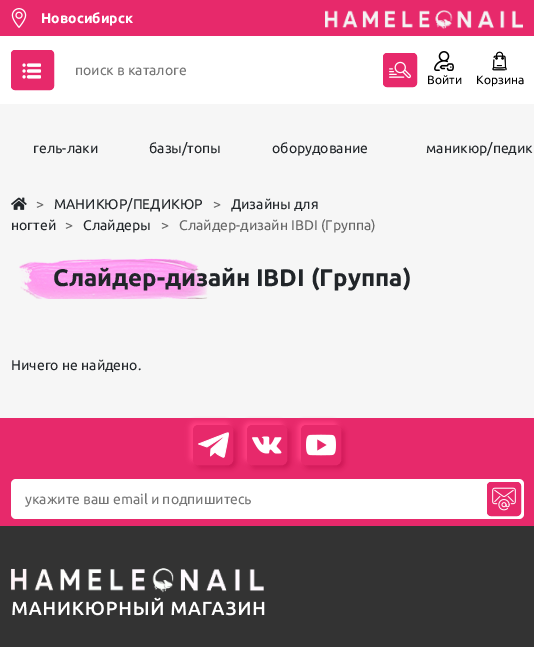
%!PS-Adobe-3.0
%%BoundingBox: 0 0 534 647
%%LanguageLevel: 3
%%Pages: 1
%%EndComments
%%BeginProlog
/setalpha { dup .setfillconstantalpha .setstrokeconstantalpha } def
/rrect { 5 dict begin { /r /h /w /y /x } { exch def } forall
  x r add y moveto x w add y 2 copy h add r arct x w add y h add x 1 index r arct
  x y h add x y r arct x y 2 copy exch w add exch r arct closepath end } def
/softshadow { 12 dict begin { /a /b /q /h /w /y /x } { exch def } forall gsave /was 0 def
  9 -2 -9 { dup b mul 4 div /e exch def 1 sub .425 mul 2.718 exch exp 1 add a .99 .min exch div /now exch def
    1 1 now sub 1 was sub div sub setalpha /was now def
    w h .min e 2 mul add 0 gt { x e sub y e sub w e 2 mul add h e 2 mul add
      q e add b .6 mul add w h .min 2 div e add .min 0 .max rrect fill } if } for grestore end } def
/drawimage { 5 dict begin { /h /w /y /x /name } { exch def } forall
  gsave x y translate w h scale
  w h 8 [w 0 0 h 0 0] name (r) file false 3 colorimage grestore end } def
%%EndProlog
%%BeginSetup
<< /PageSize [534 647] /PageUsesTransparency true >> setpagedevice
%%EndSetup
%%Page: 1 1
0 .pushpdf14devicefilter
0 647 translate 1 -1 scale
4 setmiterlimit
0.965 setgray
0 0 534 647 rectfill
0.906 0.161 0.42 setrgbcolor
0 0 534 36 rectfill
(images/1.raw) 11 8 16 20 drawimage
(images/2.raw) 325 10 198 19 drawimage
1 setgray
0 36 534 68 rectfill
0.906 0.161 0.42 setrgbcolor
11.5 50.5 42 39 3.5 rrect gsave fill grestore
stroke
(images/3.raw) 22 63 19 16 drawimage
383.5 53.5 33 33 3.5 rrect gsave fill grestore
stroke
(images/4.raw) 389 61 22 18 drawimage
(images/5.raw) 434 51 20 20 drawimage
(images/6.raw) 492 51 15 20 drawimage
(images/7.raw) 11 197 16 13 drawimage
(images/8.raw) 19 258 191 41 drawimage
0 418 534 108 rectfill
0.804 0.09 0.337 setrgbcolor
196 428 40 40 5 2.5 1 softshadow
1 0.247 0.506 setrgbcolor
190 422 40 40 5 2.5 1 softshadow
0.906 0.161 0.42 setrgbcolor
193.5 425.5 39 39 4.5 rrect gsave fill grestore
stroke
(images/9.raw) 198 432 31 26 drawimage
0.804 0.09 0.337 setrgbcolor
250 428 40 40 5 2.5 1 softshadow
1 0.247 0.506 setrgbcolor
244 422 40 40 5 2.5 1 softshadow
0.906 0.161 0.42 setrgbcolor
247.5 425.5 39 39 4.5 rrect gsave fill grestore
stroke
(images/10.raw) 252 436 30 18 drawimage
0.804 0.09 0.337 setrgbcolor
304 428 40 40 5 2.5 1 softshadow
1 0.247 0.506 setrgbcolor
298 422 40 40 5 2.5 1 softshadow
0.906 0.161 0.42 setrgbcolor
301.5 425.5 39 39 4.5 rrect gsave fill grestore
stroke
(images/11.raw) 306 434 30 22 drawimage
1 setgray
11 479 513 40 5 rrect fill
0.906 0.161 0.42 setrgbcolor
487.5 482.5 33 33 3.5 rrect gsave fill grestore
stroke
(images/12.raw) 492 487 24 24 drawimage
0.2 setgray
0 526 534 121 rectfill
(images/13.raw) 11 568 254 48 drawimage
/Ubuntu-Bold [14 0 0 -14 0 0] selectfont
1 setgray
41 23 moveto (Новосибирск) show
/Ubuntu-Regular [14 0 0 -14 0 0] selectfont
0.459 setgray
75 75 moveto (поиск в каталоге) show
/Ubuntu-Regular [12 0 0 -12 0 0] selectfont
0 setgray
427 84 moveto (Войти) show
476 84 moveto (Корзина) show
/Ubuntu-Regular [14 0 0 -14 0 0] selectfont
0.129 0.145 0.161 setrgbcolor
33 153 moveto (гель-лаки) show
149 153 moveto (базы/топы) show
272 153 moveto (оборудование) show
426 153 moveto (маникюр/педик) show
0.4 setgray
36 209 moveto (>) show
0.129 0.145 0.161 setrgbcolor
54 209 moveto (МАНИКЮР/ПЕДИКЮР) show
0.4 setgray
213 209 moveto (>) show
0.129 0.145 0.161 setrgbcolor
231 209 moveto (Дизайны для) show
11 230 moveto (ногтей) show
0.4 setgray
65 230 moveto (>) show
0.129 0.145 0.161 setrgbcolor
83 230 moveto (Слайдеры) show
0.4 setgray
161 230 moveto (>) show
179 230 moveto (Слайдер-дизайн IBDI \(Группа\)) show
/Ubuntu-Bold [24 0 0 -24 0 0] selectfont
0.129 0.145 0.161 setrgbcolor
53 286 moveto (Слайдер-дизайн IBDI \(Группа\)) show
/Ubuntu-Regular [14 0 0 -14 0 0] selectfont
11 370 moveto (Ничего не найдено.) show
gsave
25 491 457 16 rectclip
0.459 setgray
25 504 moveto (укажите ваш email и подпишитесь) show
grestore
.poppdf14devicefilter showpage
%%EOF
